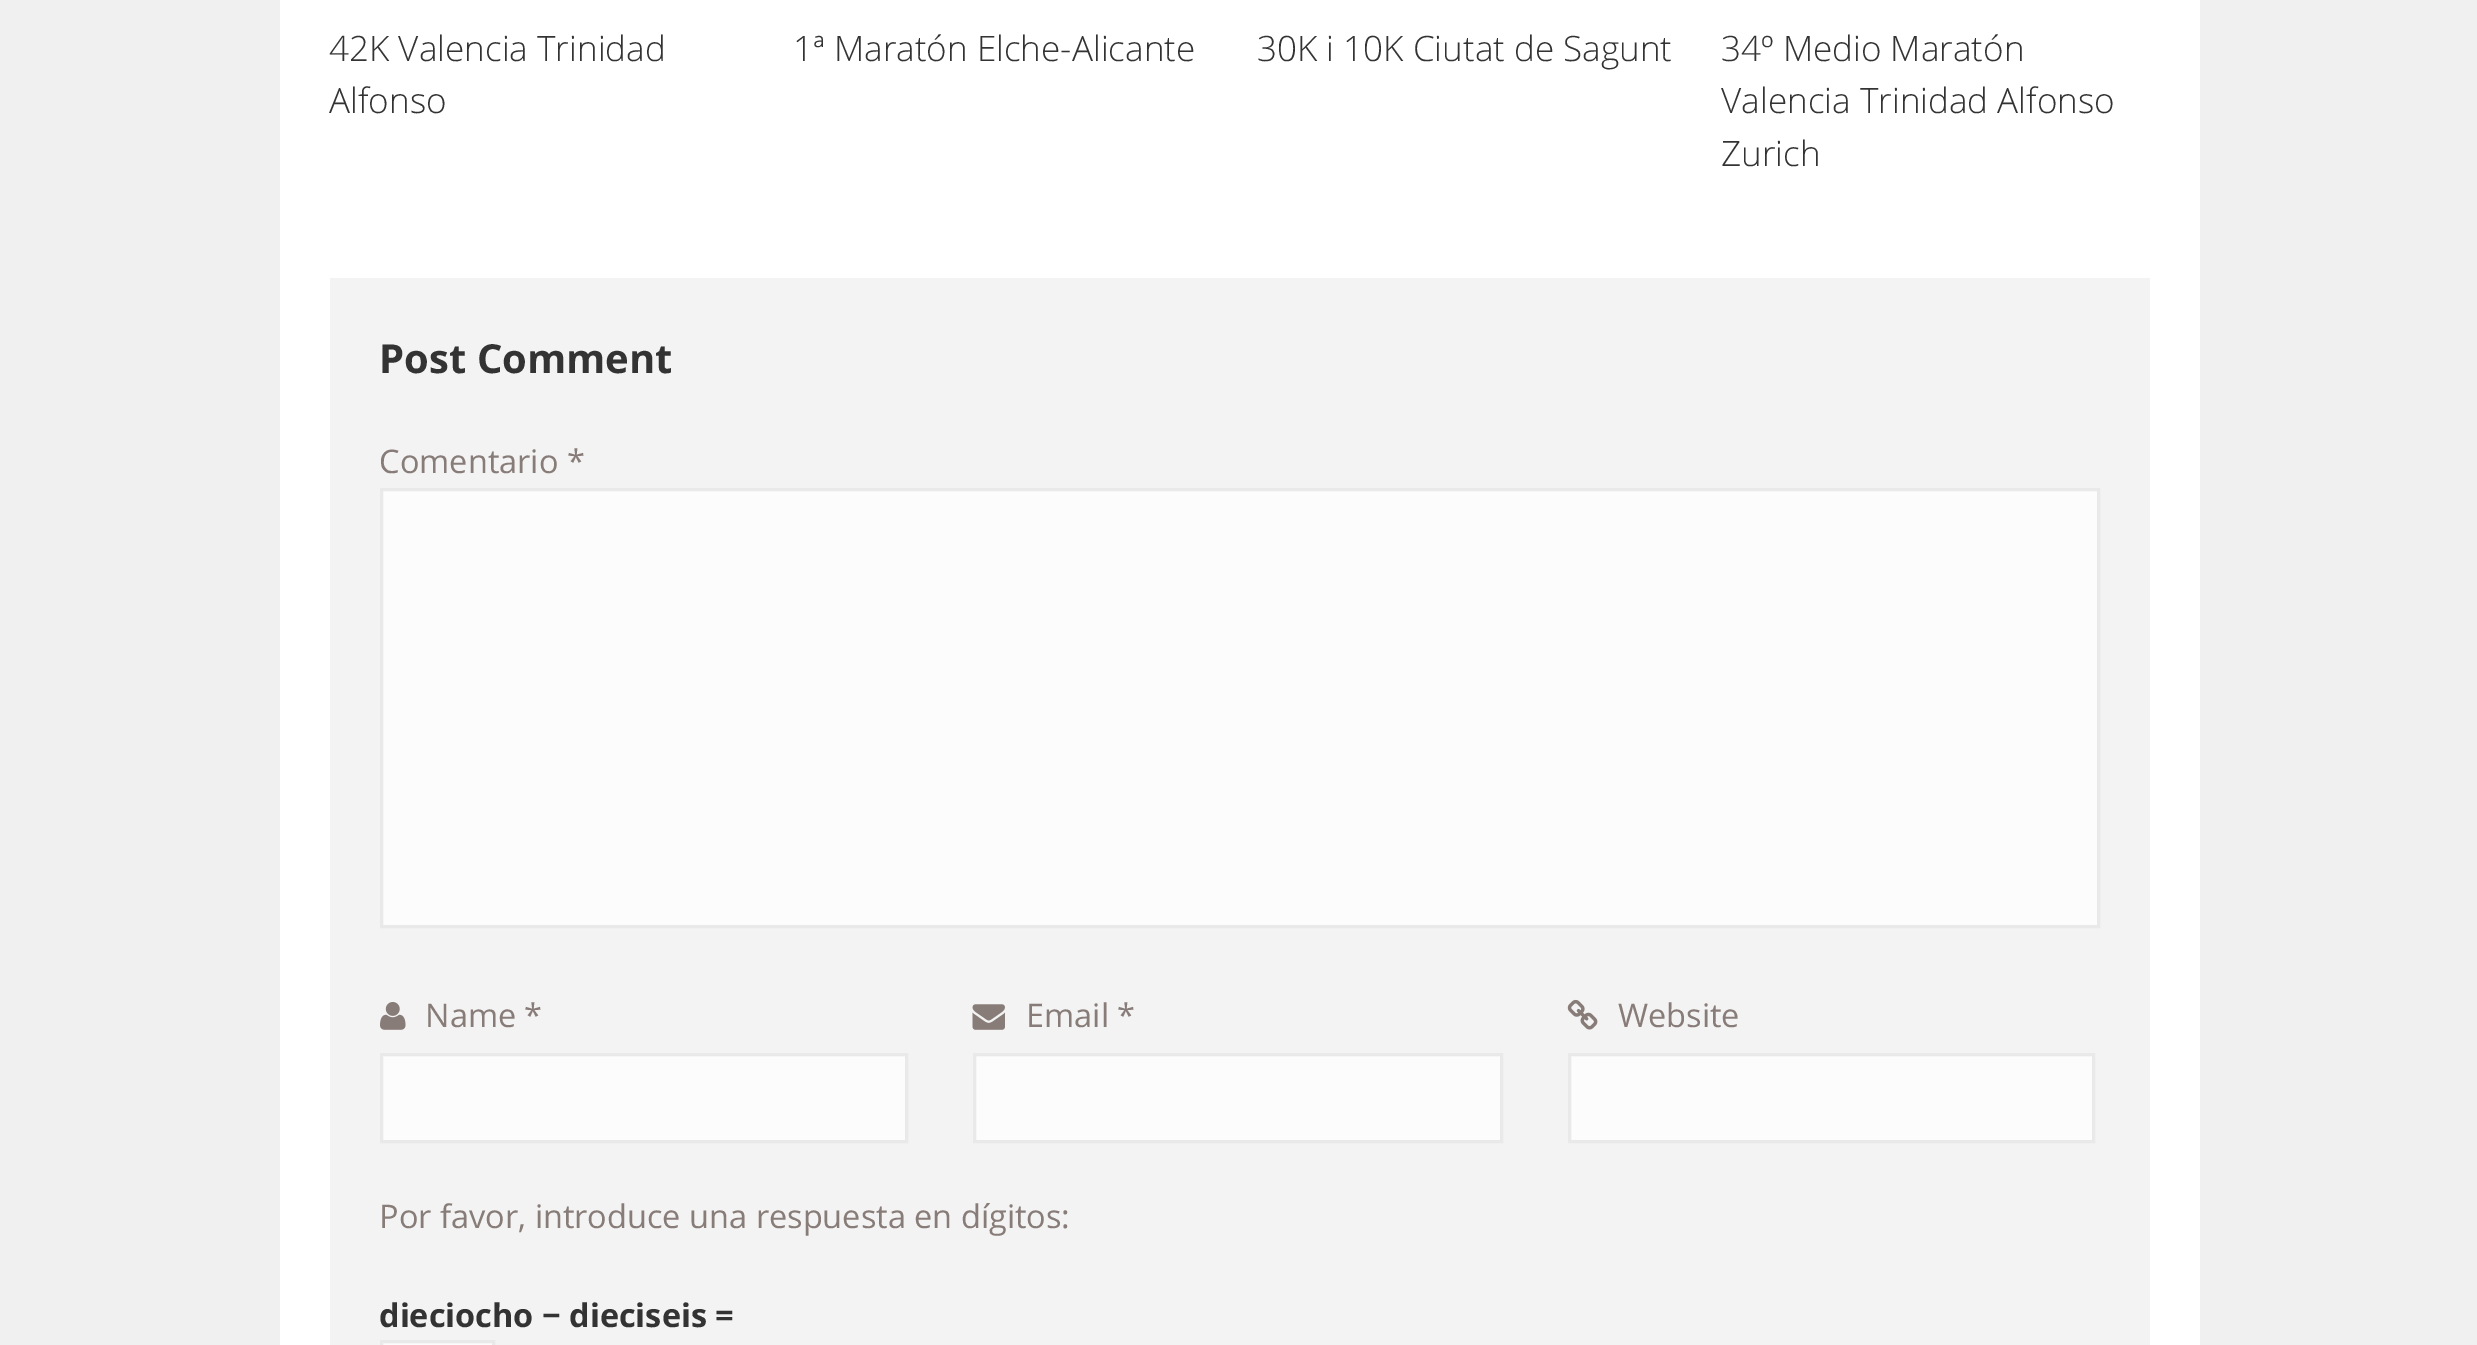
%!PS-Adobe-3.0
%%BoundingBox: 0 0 2477 1345
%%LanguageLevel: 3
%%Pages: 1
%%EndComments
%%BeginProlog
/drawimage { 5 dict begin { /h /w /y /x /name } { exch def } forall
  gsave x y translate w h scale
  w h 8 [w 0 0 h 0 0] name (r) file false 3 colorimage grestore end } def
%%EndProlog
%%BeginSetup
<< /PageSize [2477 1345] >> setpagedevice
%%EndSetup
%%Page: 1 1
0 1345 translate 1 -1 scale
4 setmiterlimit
0.941 setgray
0 0 2477 1345 rectfill
1 setgray
280 0 1920 1345 rectfill
0.953 setgray
330 278 1820 1067 rectfill
0.988 setgray
newpath 381.5 489.5 moveto 2098.5 489.5 lineto 2098.5 926.5 lineto 381.5 926.5 lineto closepath gsave fill grestore
0.914 setgray
3 setlinewidth
stroke
(images/1.raw) 380 1002 26 28 drawimage
0.988 setgray
newpath 381.5 1054.5 moveto 906.5 1054.5 lineto 906.5 1141.5 lineto 381.5 1141.5 lineto closepath gsave fill grestore
0.914 setgray
stroke
(images/2.raw) 972 1004 33 26 drawimage
0.988 setgray
newpath 974.5 1054.5 moveto 1501.5 1054.5 lineto 1501.5 1141.5 lineto 974.5 1141.5 lineto closepath gsave fill grestore
0.914 setgray
stroke
(images/3.raw) 1567 999 31 31 drawimage
0.988 setgray
newpath 1569.5 1054.5 moveto 2093.5 1054.5 lineto 2093.5 1141.5 lineto 1569.5 1141.5 lineto closepath gsave fill grestore
0.914 setgray
stroke
0.988 setgray
newpath 381.5 1341.5 moveto 493.5 1341.5 lineto 493.5 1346.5 lineto 381.5 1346.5 lineto closepath gsave fill grestore
0.914 setgray
stroke
/OpenSans-Light [35 0 0 -35 0 0] selectfont
0.2 setgray
329 61 moveto (42K Valencia Trinidad) show
329 113 moveto (Alfonso) show
793 61 moveto (1ª Maratón Elche-Alicante) show
1257 61 moveto (30K i 10K Ciutat de Sagunt) show
1721 61 moveto (34º Medio Maratón) show
1721 113 moveto (Valencia Trinidad Alfonso) show
1721 166 moveto (Zurich) show
/OpenSans-Bold [40 0 0 -40 0 0] selectfont
379 373 moveto (Post Comment) show
/OpenSans-Regular [32.5 0 0 -32.5 0 0] selectfont
0.529 0.486 0.471 setrgbcolor
379 473 moveto (Comentario *) show
425 1027 moveto (Name *) show
1026 1027 moveto (Email *) show
1618 1027 moveto (Website) show
379 1228 moveto (Por favor, introduce una respuesta en dígitos:) show
/OpenSans-Bold [32.5 0 0 -32.5 0 0] selectfont
0.2 setgray
379 1327 moveto (dieciocho − dieciseis =) show
showpage
%%EOF
